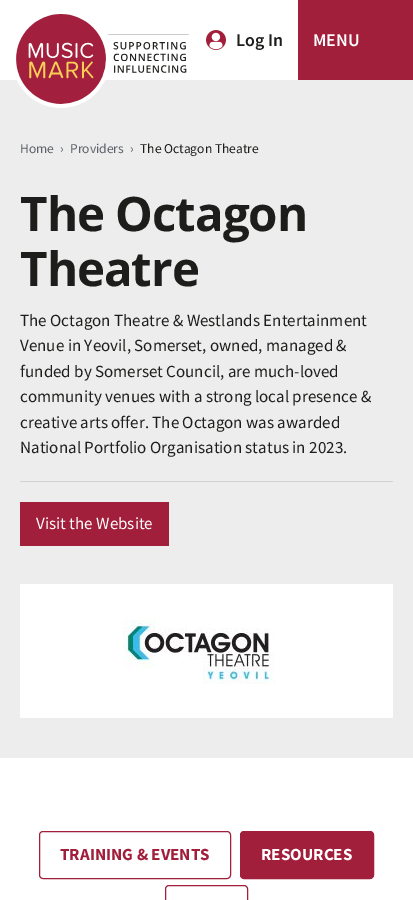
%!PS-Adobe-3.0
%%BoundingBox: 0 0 413 900
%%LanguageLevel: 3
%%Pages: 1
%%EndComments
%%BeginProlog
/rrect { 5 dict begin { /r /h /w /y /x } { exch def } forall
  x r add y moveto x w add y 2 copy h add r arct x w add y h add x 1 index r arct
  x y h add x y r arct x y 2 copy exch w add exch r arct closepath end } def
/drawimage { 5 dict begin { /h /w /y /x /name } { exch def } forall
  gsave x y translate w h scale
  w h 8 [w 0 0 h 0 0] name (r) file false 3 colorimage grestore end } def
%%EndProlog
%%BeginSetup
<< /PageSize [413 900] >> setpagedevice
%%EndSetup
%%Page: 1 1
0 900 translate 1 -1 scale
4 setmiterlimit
1 setgray
0 0 413 900 rectfill
0.929 setgray
0 80 413 678 rectfill
(images/1.raw) 16 14 173 94 drawimage
(images/2.raw) 206 30 20 20 drawimage
0.635 0.122 0.235 setrgbcolor
298 0 115 80 rectfill
0.824 setgray
20 481 373 1 rectfill
0.635 0.122 0.235 setrgbcolor
20 502 149 44 rectfill
1 setgray
20 584 373 134 rectfill
(images/3.raw) 123 619 152 65 drawimage
0.635 0.122 0.235 setrgbcolor
39.5 831.5 191 47 3.5 rrect stroke
240.5 831.5 133 47 3.5 rrect gsave fill grestore
stroke
165.5 885.5 82 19 3.5 rrect stroke
/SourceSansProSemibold-SemiBold [18 0 0 -18 0 0] selectfont
0.114 0.114 0.106 setrgbcolor
236 46 moveto (Log In) show
1 setgray
313 46 moveto (MENU) show
/SourceSansPro-Regular [13.5 0 0 -13.5 0 0] selectfont
0.357 0.38 0.404 setrgbcolor
20 153 moveto (Home) show
60 153 moveto (›) show
70 153 moveto (Providers) show
130 153 moveto (›) show
0.114 0.114 0.106 setrgbcolor
140 153 moveto (The Octagon Theatre) show
/OpenSans-Bold [47.5 0 0 -47.5 0 0] selectfont
20 231 moveto -1 0 (The Octagon) ashow
20 286 moveto -1 0 (Theatre) ashow
/SourceSansPro-Regular [17 0 0 -17 0 0] selectfont
20 326 moveto (The Octagon Theatre & Westlands Entertainment) show
20 351 moveto (Venue in Yeovil, Somerset, owned, managed &) show
20 377 moveto (funded by Somerset Council, are much-loved) show
20 402 moveto (community venues with a strong local presence &) show
20 428 moveto (creative arts offer. The Octagon was awarded) show
20 453 moveto (National Portfolio Organisation status in 2023.) show
1 setgray
36 529 moveto (Visit the Website) show
/SourceSansPro-Bold [17 0 0 -17 0 0] selectfont
0.635 0.122 0.235 setrgbcolor
60 860 moveto (TRAINING & EVENTS) show
1 setgray
261 860 moveto (RESOURCES) show
showpage
%%EOF
